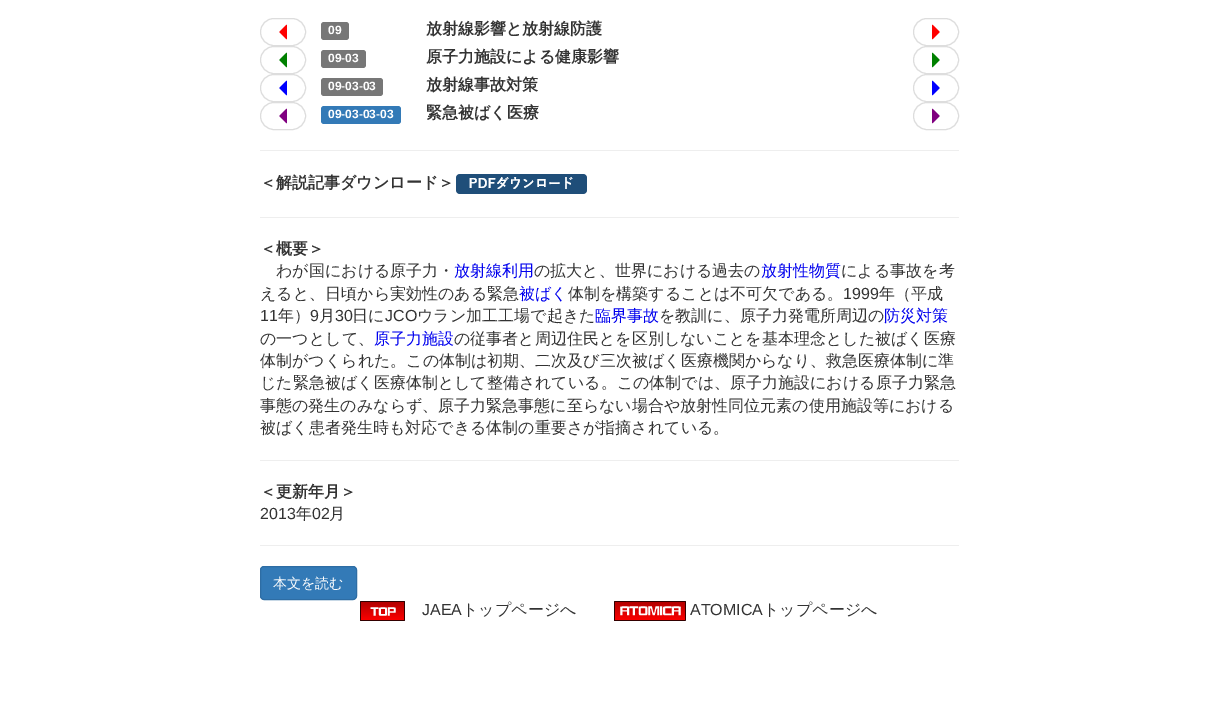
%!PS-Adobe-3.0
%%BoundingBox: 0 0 1219 728
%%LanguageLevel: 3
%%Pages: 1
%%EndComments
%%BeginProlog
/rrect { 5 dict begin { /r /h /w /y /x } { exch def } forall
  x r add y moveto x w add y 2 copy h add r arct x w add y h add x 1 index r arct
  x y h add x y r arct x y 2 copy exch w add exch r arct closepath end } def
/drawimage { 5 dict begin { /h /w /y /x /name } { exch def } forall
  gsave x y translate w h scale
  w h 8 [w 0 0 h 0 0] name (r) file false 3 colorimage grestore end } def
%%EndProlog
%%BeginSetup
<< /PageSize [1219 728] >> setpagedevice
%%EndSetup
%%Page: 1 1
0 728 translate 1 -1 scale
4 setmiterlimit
1 setgray
0 0 1219 728 rectfill
0.867 setgray
260.5 18.5 45 27 13.5 rrect stroke
(images/1.raw) 279 24 8 16 drawimage
0.467 setgray
321 22 28 18 3 rrect fill
0.867 setgray
913.5 18.5 45 27 13.5 rrect stroke
(images/2.raw) 932 24 8 16 drawimage
260.5 46.5 45 27 13.5 rrect stroke
(images/3.raw) 279 52 8 16 drawimage
0.467 setgray
321 50 45 18 3 rrect fill
0.867 setgray
913.5 46.5 45 27 13.5 rrect stroke
(images/4.raw) 932 52 8 16 drawimage
260.5 74.5 45 27 13.5 rrect stroke
(images/5.raw) 279 80 8 16 drawimage
0.467 setgray
321 78 62 18 3 rrect fill
0.867 setgray
913.5 74.5 45 27 13.5 rrect stroke
(images/6.raw) 932 80 8 16 drawimage
260.5 102.5 45 27 13.5 rrect stroke
(images/7.raw) 279 108 8 16 drawimage
0.2 0.478 0.718 setrgbcolor
321 106 80 18 3 rrect fill
0.867 setgray
913.5 102.5 45 27 13.5 rrect stroke
(images/8.raw) 932 108 8 16 drawimage
0.933 setgray
260 150 699 1 rectfill
(images/9.raw) 456 174 131 20 drawimage
260 217 699 1 rectfill
260 460 699 1 rectfill
260 545 699 1 rectfill
0.2 0.478 0.718 setrgbcolor
260.5 566.5 96 33 3.5 rrect gsave fill grestore
0.18 0.427 0.643 setrgbcolor
stroke
(images/10.raw) 360 601 45 20 drawimage
(images/11.raw) 614 601 72 20 drawimage
/LiberationSans-Bold [12 0 0 -12 0 0] selectfont
1 setgray
328 34 moveto (09) show
/WenQuanYiZenHei-Bold [16 0 0 -16 0 0] selectfont
0.2 setgray
426 34 moveto (放射線影響と放射線防護) show
/LiberationSans-Bold [12 0 0 -12 0 0] selectfont
1 setgray
328 62 moveto (09-03) show
/WenQuanYiZenHei-Bold [16 0 0 -16 0 0] selectfont
0.2 setgray
426 62 moveto (原子力施設による健康影響) show
/LiberationSans-Bold [12 0 0 -12 0 0] selectfont
1 setgray
328 90 moveto (09-03-03) show
/WenQuanYiZenHei-Bold [16 0 0 -16 0 0] selectfont
0.2 setgray
426 90 moveto (放射線事故対策) show
/LiberationSans-Bold [12 0 0 -12 0 0] selectfont
1 setgray
328 118 moveto (09-03-03-03) show
/WenQuanYiZenHei-Bold [16 0 0 -16 0 0] selectfont
0.2 setgray
426 118 moveto (緊急被ばく医療) show
260 188 moveto (＜解説記事ダウンロード＞) show
260 254 moveto (＜概要＞) show
/WenQuanYiZenHei-Medium [16 0 0 -16 0 0] selectfont
276 276 moveto (わが国における原子力・) show
0 0 0.933 setrgbcolor
454 276 moveto (放射線利用) show
0.2 setgray
534 276 moveto (の拡大と、世界における過去の) show
0 0 0.933 setrgbcolor
761 276 moveto (放射性物質) show
0.2 setgray
841 276 moveto (による事故を考) show
260 299 moveto (えると、日頃から実効性のある緊急) show
0 0 0.933 setrgbcolor
519 299 moveto (被ばく) show
0.2 setgray
568 299 moveto (体制を構築することは不可欠である。) show
/LiberationSans-Regular [16 0 0 -16 0 0] selectfont
843 299 moveto (1999) show
/WenQuanYiZenHei-Medium [16 0 0 -16 0 0] selectfont
879 299 moveto (年（平成) show
/LiberationSans-Regular [16 0 0 -16 0 0] selectfont
260 321 moveto (11) show
/WenQuanYiZenHei-Medium [16 0 0 -16 0 0] selectfont
278 321 moveto (年）) show
/LiberationSans-Regular [16 0 0 -16 0 0] selectfont
310 321 moveto (9) show
/WenQuanYiZenHei-Medium [16 0 0 -16 0 0] selectfont
319 321 moveto (月) show
/LiberationSans-Regular [16 0 0 -16 0 0] selectfont
335 321 moveto (30) show
/WenQuanYiZenHei-Medium [16 0 0 -16 0 0] selectfont
352 321 moveto (日に) show
/LiberationSans-Regular [16 0 0 -16 0 0] selectfont
385 321 moveto (JCO) show
/WenQuanYiZenHei-Medium [16 0 0 -16 0 0] selectfont
417 321 moveto (ウラン加工工場で起きた) show
0 0 0.933 setrgbcolor
595 321 moveto (臨界事故) show
0.2 setgray
659 321 moveto (を教訓に、原子力発電所周辺の) show
0 0 0.933 setrgbcolor
884 321 moveto (防災対策) show
0.2 setgray
260 344 moveto (の一つとして、) show
0 0 0.933 setrgbcolor
374 344 moveto (原子力施設) show
0.2 setgray
454 344 moveto (の従事者と周辺住民とを区別しないことを基本理念とした被ばく医療) show
260 366 moveto (体制がつくられた。この体制は初期、二次及び三次被ばく医療機関からなり、救急医療体制に準) show
260 388 moveto (じた緊急被ばく医療体制として整備されている。この体制では、原子力施設における原子力緊急) show
260 411 moveto (事態の発生のみならず、原子力緊急事態に至らない場合や放射性同位元素の使用施設等における) show
260 433 moveto (被ばく患者発生時も対応できる体制の重要さが指摘されている。) show
/WenQuanYiZenHei-Bold [16 0 0 -16 0 0] selectfont
260 497 moveto (＜更新年月＞) show
/LiberationSans-Regular [16 0 0 -16 0 0] selectfont
260 519 moveto (2013) show
/WenQuanYiZenHei-Medium [16 0 0 -16 0 0] selectfont
296 519 moveto (年) show
/LiberationSans-Regular [16 0 0 -16 0 0] selectfont
312 519 moveto (02) show
/WenQuanYiZenHei-Medium [16 0 0 -16 0 0] selectfont
329 519 moveto (月) show
/WenQuanYiZenHei-Medium [14 0 0 -14 0 0] selectfont
1 setgray
273 588 moveto (本文を読む) show
/LiberationSans-Regular [16 0 0 -16 0 0] selectfont
0.2 setgray
422 615 moveto (JAEA) show
/WenQuanYiZenHei-Medium [16 0 0 -16 0 0] selectfont
462 615 moveto (トップページへ) show
/LiberationSans-Regular [16 0 0 -16 0 0] selectfont
690 615 moveto (ATOMICA) show
/WenQuanYiZenHei-Medium [16 0 0 -16 0 0] selectfont
763 615 moveto (トップページへ) show
showpage
%%EOF
